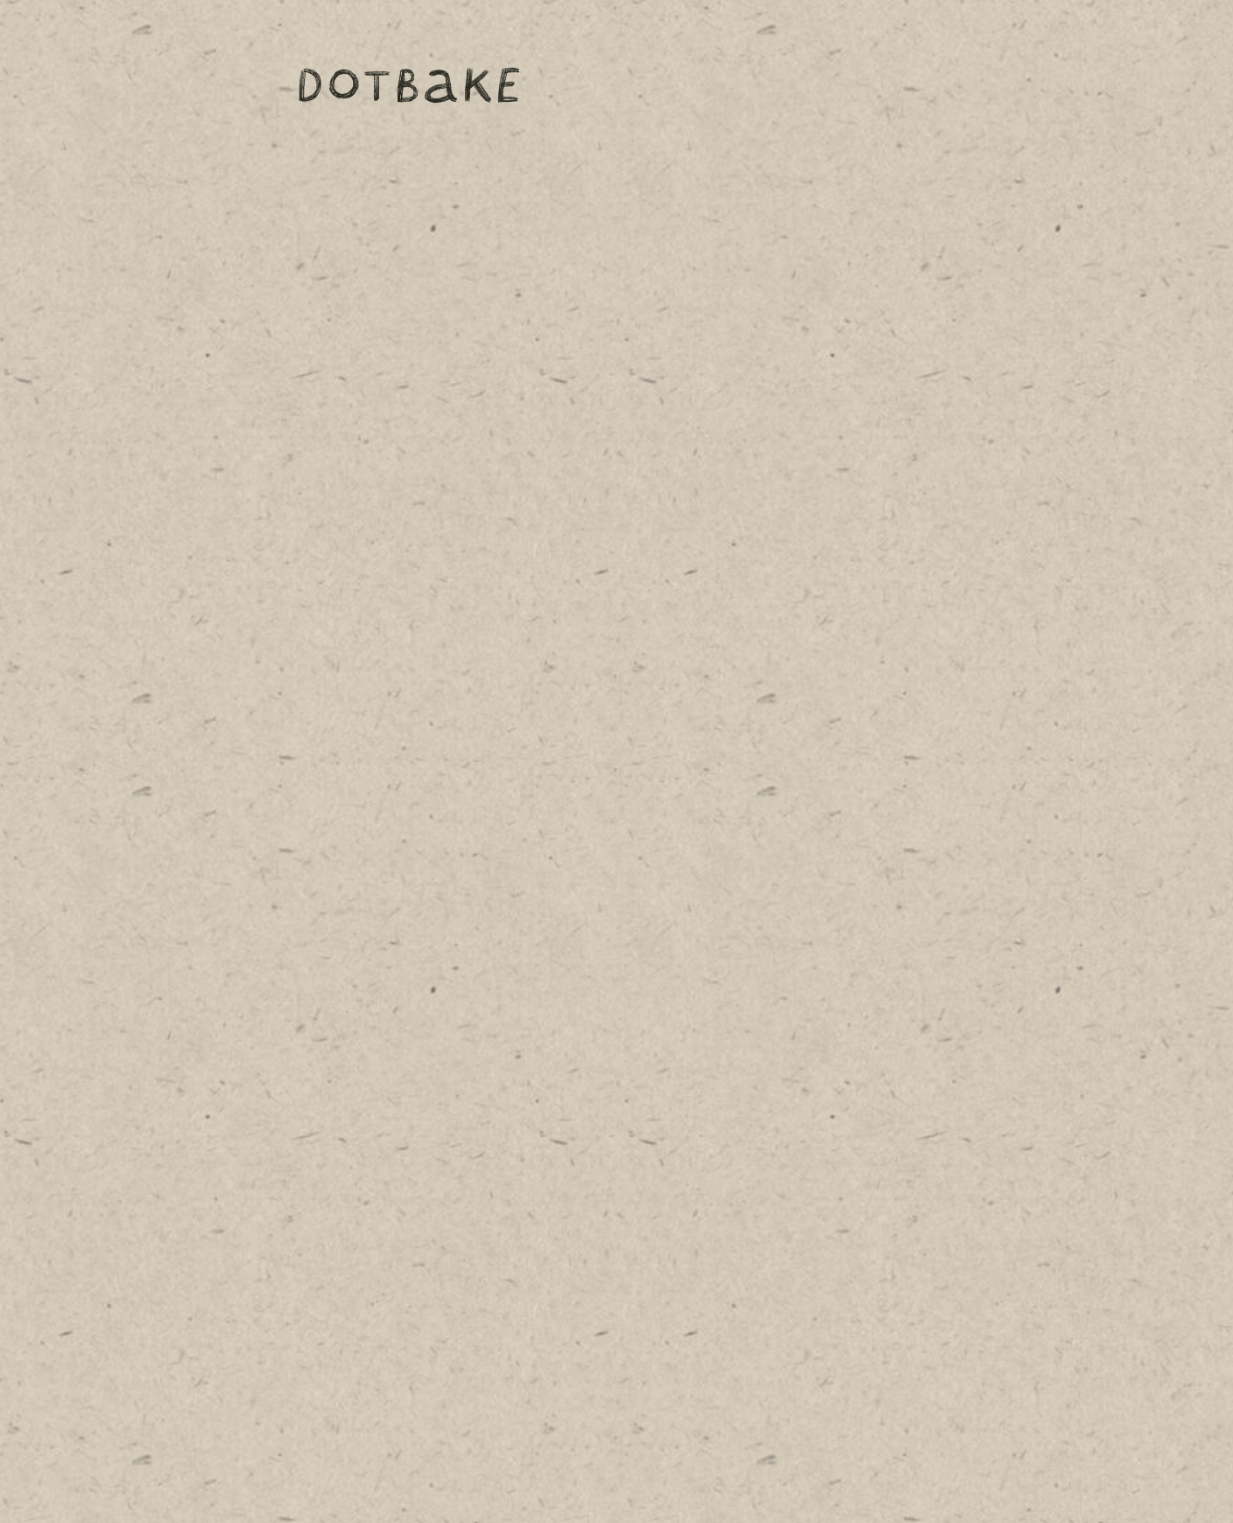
%!PS-Adobe-3.0
%%BoundingBox: 0 0 1233 1523
%%LanguageLevel: 3
%%Pages: 1
%%EndComments
%%BeginProlog
/drawimage { 5 dict begin { /h /w /y /x /name } { exch def } forall
  gsave x y translate w h scale
  w h 8 [w 0 0 h 0 0] name (r) file false 3 colorimage grestore end } def
%%EndProlog
%%BeginSetup
<< /PageSize [1233 1523] >> setpagedevice
%%EndSetup
%%Page: 1 1
0 1523 translate 1 -1 scale
4 setmiterlimit
1 setgray
0 0 1233 1523 rectfill
(images/1.raw) 0 0 1233 1523 drawimage
(images/2.raw) 298 67 239 37 drawimage
showpage
%%EOF
